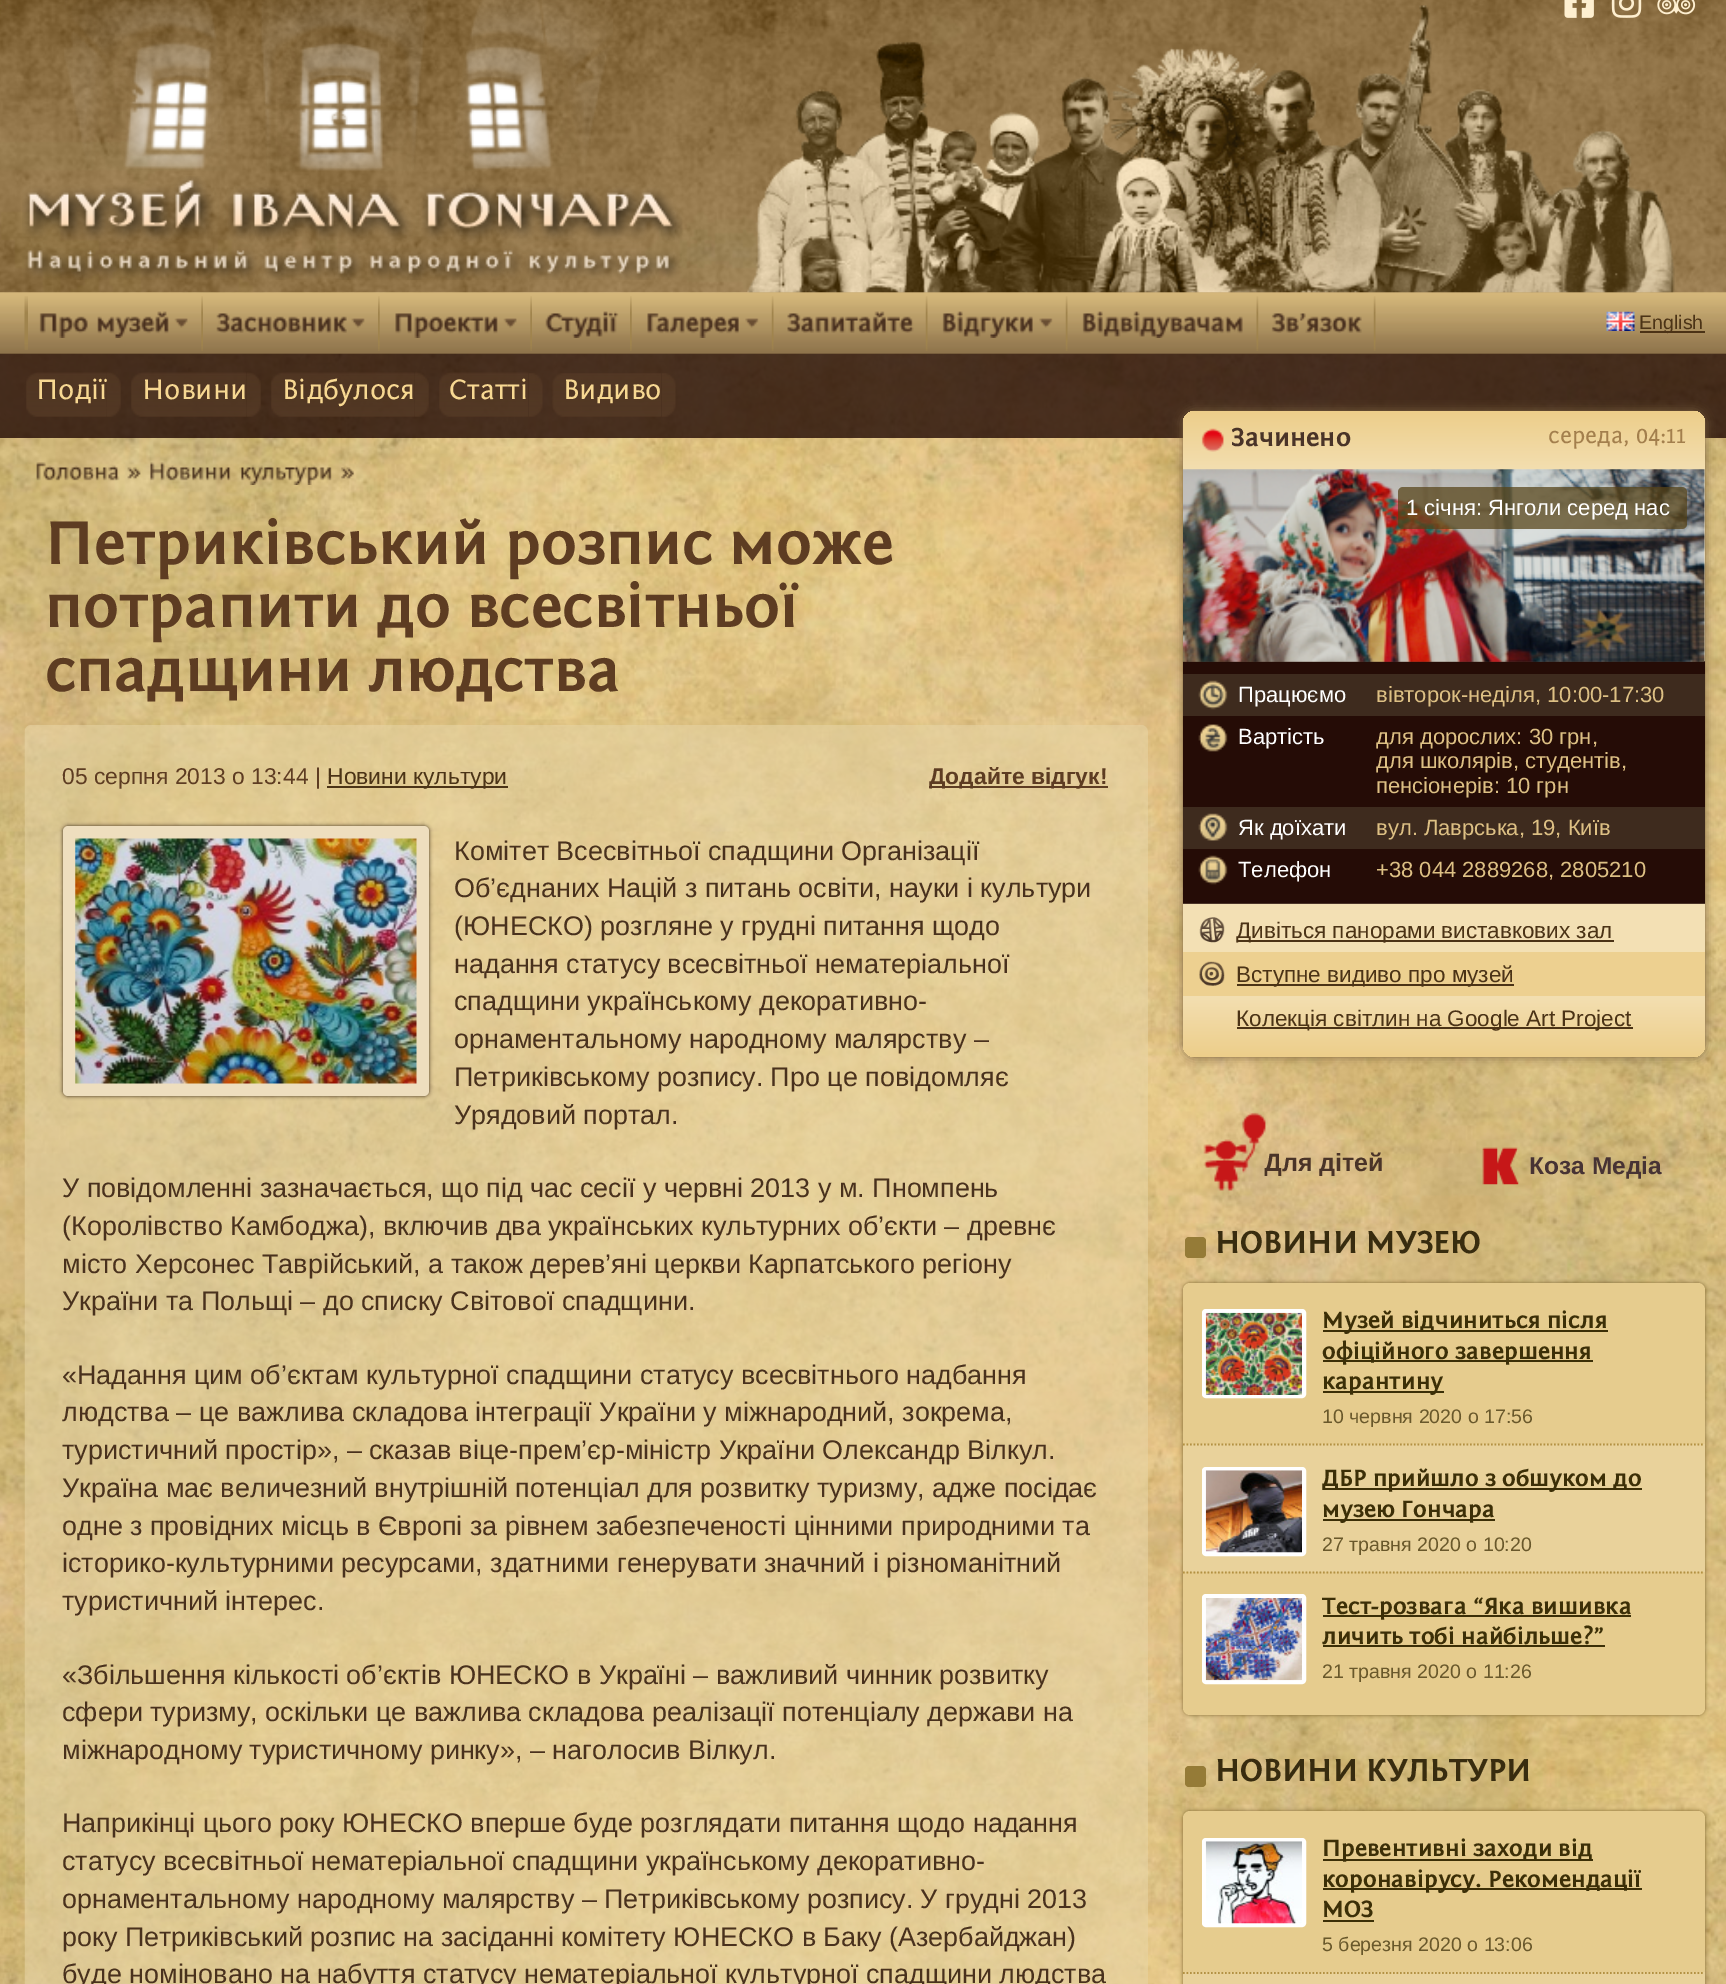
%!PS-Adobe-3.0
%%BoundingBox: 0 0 1726 1984
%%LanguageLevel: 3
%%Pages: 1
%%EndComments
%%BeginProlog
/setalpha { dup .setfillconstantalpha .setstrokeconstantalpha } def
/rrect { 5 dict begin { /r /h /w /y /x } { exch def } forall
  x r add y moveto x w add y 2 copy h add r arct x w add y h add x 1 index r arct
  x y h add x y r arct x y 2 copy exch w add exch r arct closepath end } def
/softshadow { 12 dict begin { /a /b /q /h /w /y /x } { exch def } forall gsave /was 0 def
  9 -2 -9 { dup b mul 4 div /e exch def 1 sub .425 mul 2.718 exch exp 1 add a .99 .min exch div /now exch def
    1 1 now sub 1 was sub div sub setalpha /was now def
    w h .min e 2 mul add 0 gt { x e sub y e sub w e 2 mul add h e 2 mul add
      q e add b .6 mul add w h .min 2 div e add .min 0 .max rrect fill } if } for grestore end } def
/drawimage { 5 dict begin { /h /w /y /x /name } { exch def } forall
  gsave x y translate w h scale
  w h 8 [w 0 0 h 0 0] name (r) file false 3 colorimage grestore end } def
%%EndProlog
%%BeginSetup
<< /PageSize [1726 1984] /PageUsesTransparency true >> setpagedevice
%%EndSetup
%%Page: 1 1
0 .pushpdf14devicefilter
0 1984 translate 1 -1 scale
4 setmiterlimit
1 setgray
0 0 1726 1984 rectfill
(images/1.raw) 0 292 1726 1692 drawimage
(images/2.raw) 0 0 1726 293 drawimage
(images/3.raw) 64 0 549 171 drawimage
(images/8.raw) 747 5 928 288 drawimage
(images/4.raw) 1564 0 30 18 drawimage
(images/5.raw) 1611 0 31 18 drawimage
(images/6.raw) 1657 0 39 15 drawimage
(images/7.raw) 22 176 661 104 drawimage
0.78 setalpha
0.11 0.016 0 setrgbcolor
0 353 1726 85 rectfill
1 setalpha
(images/9.raw) 0 292 1726 62 drawimage
(images/10.raw) 24 296 4 54 drawimage
(images/11.raw) 201 296 2 55 drawimage
(images/12.raw) 174 318 14 10 drawimage
(images/13.raw) 39 313 49 25 drawimage
(images/14.raw) 97 311 72 27 drawimage
(images/15.raw) 378 296 2 55 drawimage
(images/16.raw) 351 318 14 10 drawimage
(images/17.raw) 216 313 131 20 drawimage
(images/11.raw) 530 296 2 55 drawimage
(images/18.raw) 503 318 14 10 drawimage
(images/19.raw) 395 313 103 25 drawimage
(images/15.raw) 630 296 2 55 drawimage
(images/20.raw) 545 311 74 27 drawimage
(images/21.raw) 771 296 3 55 drawimage
(images/22.raw) 745 318 14 10 drawimage
(images/23.raw) 647 313 92 25 drawimage
(images/21.raw) 925 296 3 55 drawimage
(images/24.raw) 787 311 127 22 drawimage
(images/21.raw) 1065 296 3 55 drawimage
(images/22.raw) 1039 318 14 10 drawimage
(images/25.raw) 942 311 91 27 drawimage
(images/26.raw) 1256 296 3 55 drawimage
(images/27.raw) 1082 311 161 27 drawimage
(images/21.raw) 1373 296 3 55 drawimage
(images/28.raw) 1271 313 91 20 drawimage
(images/29.raw) 1606 311 29 20 drawimage
0.294 0.2 0.086 setrgbcolor
1640 331 65 2 rectfill
(images/30.raw) 26 372 81 45 drawimage
(images/32.raw) 131 372 116 45 drawimage
(images/33.raw) 247 372 14 45 drawimage
(images/34.raw) 271 372 144 45 drawimage
(images/35.raw) 415 372 14 45 drawimage
(images/36.raw) 439 372 90 45 drawimage
(images/37.raw) 529 373 14 44 drawimage
(images/38.raw) 552 373 110 44 drawimage
(images/39.raw) 662 373 14 44 drawimage
(images/40.raw) 36 462 84 19 drawimage
(images/41.raw) 127 467 14 13 drawimage
(images/42.raw) 150 462 81 19 drawimage
(images/43.raw) 239 465 93 20 drawimage
(images/44.raw) 341 467 13 13 drawimage
(images/45.raw) 24 725 1124 1259 drawimage
327 786 181 2 rectfill
0.365 0.235 0.133 setrgbcolor
929 786 179 2 rectfill
0.224 0.157 0.094 setrgbcolor
63 826 366 270 5 2 1 softshadow
0.933 0.871 0.745 setrgbcolor
63 826 366 270 5 rrect fill
(images/46.raw) 75 838 342 246 drawimage
0.486 0.388 0.255 setrgbcolor
1183 411 522 646 12 5 1 softshadow
gsave 1183 411 522 646 12 rrect clip newpath
<< /ShadingType 2 /ColorSpace /DeviceRGB /Coords [1444 411 1444 1057] /Extend [true true] /Function << /FunctionType 3 /Domain [0 1] /Functions [<< /FunctionType 2 /Domain [0 1] /C0 [0.929 0.808 0.541] /C1 [0.953 0.878 0.706] /N 1 >> << /FunctionType 2 /Domain [0 1] /C0 [0.953 0.878 0.706] /C1 [0.953 0.878 0.706] /N 1 >> << /FunctionType 2 /Domain [0 1] /C0 [0.953 0.878 0.706] /C1 [0.929 0.808 0.541] /N 1 >>] /Bounds [0.1 0.9] /Encode [0 1 0 1 0 1] >> >> shfill grestore
(images/47.raw) 1201 428 23 24 drawimage
0.267 0.165 0.102 setrgbcolor
1183 662 522 241 rectfill
0.78 setalpha
0.11 0.016 0 setrgbcolor
1183 661 522 243 rectfill
1 setalpha
(images/48.raw) 1183 469 522 193 drawimage
0.72 setalpha
0.333 0.259 0.086 setrgbcolor
1398 487 289 42 5 rrect fill
1 setalpha
0.243 0.169 0.118 setrgbcolor
1183 674 522 42 rectfill
(images/49.raw) 1198 680 30 30 drawimage
(images/50.raw) 1198 724 30 28 drawimage
1183 807 522 42 rectfill
(images/51.raw) 1198 813 30 28 drawimage
(images/52.raw) 1198 855 30 30 drawimage
(images/53.raw) 1199 917 26 26 drawimage
0.294 0.2 0.086 setrgbcolor
1237 940 377 2 rectfill
0.929 0.816 0.565 setrgbcolor
1183 952 522 44 rectfill
(images/54.raw) 1199 961 26 25 drawimage
0.294 0.2 0.086 setrgbcolor
1237 984 277 2 rectfill
1237 1027 396 2 rectfill
(images/56.raw) 1482 1147 37 38 drawimage
0.584 0.482 0.216 setrgbcolor
1185 1237 21 21 4 rrect fill
0.486 0.388 0.176 setrgbcolor
1183 1283 522 432 7 2 1 softshadow
0.902 0.8 0.557 setrgbcolor
1183 1283 522 432 7 rrect fill
1183 1288 522 2 rectfill
1 setgray
4 setlinewidth
1204 1311 100 85 2 rrect stroke
(images/57.raw) 1205 1312 97 83 drawimage
0.235 0.184 0.027 setrgbcolor
1323 1330 285 2 rectfill
1323 1360 270 2 rectfill
1323 1391 121 2 rectfill
0.914 0.824 0.608 setrgbcolor
1183 1444 522 128 rectfill
0.702 0.569 0.259 setrgbcolor
1.8 setlinewidth
[1.75 1.75] 0 setdash
newpath 1183 1444.5 moveto 1704.5 1444.5 lineto stroke
1 setgray
4 setlinewidth
[] 0 setdash
1204 1469 100 85 2 rrect stroke
(images/58.raw) 1205 1470 97 83 drawimage
0.235 0.184 0.027 setrgbcolor
1323 1488 319 2 rectfill
1323 1519 172 2 rectfill
0.702 0.569 0.259 setrgbcolor
1.8 setlinewidth
[1.75 1.75] 0 setdash
newpath 1183 1572.5 moveto 1704.5 1572.5 lineto stroke
1 setgray
4 setlinewidth
[] 0 setdash
1204 1596 100 86 2 rrect stroke
(images/59.raw) 1205 1598 97 83 drawimage
0.235 0.184 0.027 setrgbcolor
1323 1615 308 2 rectfill
1323 1645 282 2 rectfill
0.584 0.482 0.216 setrgbcolor
1185 1766 21 21 4 rrect fill
0.486 0.388 0.176 setrgbcolor
1183 1811 522 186 7 2 1 softshadow
0.902 0.8 0.557 setrgbcolor
1183 1811 522 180 7 rrect fill
1183 1817 522 1 rectfill
1 setgray
1204 1840 100 85 2 rrect stroke
(images/60.raw) 1205 1841 97 83 drawimage
0.235 0.184 0.027 setrgbcolor
1323 1859 270 2 rectfill
1323 1888 319 2 rectfill
1323 1920 51 2 rectfill
0.914 0.824 0.608 setrgbcolor
1183 1972 522 12 rectfill
0.702 0.569 0.259 setrgbcolor
1.8 setlinewidth
[1.75 1.75] 0 setdash
newpath 1183 1973 moveto 1704.5 1973 lineto stroke
/LiberationSans-Regular [19.6 0 0 -19.6 0 0] selectfont
0.294 0.2 0.086 setrgbcolor
1639 329 moveto (English) show
/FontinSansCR-Regular [29.5 0 0 -29.5 0 0] selectfont
0.969 0.847 0.573 setrgbcolor
36 399 moveto (Події) show
(images/31.raw) 106 372 15 45 drawimage
142 399 moveto (Новини) show
282 399 moveto (Відбулося) show
449 399 moveto (Статті) show
563 399 moveto (Видиво) show
/FontinSansCR-Bold [63.75 0 0 -63.75 0 0] selectfont
0.365 0.235 0.133 setrgbcolor
45 564 moveto (Петриківський розпис може) show
45 627 moveto (потрапити до всесвітньої) show
45 691 moveto (спадщини людства) show
/LiberationSans-Regular [22.9 0 0 -22.9 0 0] selectfont
62 784 moveto (05 серпня 2013 о 13:44 |) show
0.294 0.2 0.086 setrgbcolor
327 784 moveto (Новини культури) show
/LiberationSans-Bold [22.9 0 0 -22.9 0 0] selectfont
0.365 0.235 0.133 setrgbcolor
929 784 moveto (Додайте відгук!) show
/LiberationSans-Regular [26.95 0 0 -26.95 0 0] selectfont
0.286 0.192 0.114 setrgbcolor
454 860 moveto (Комітет Всесвітньої спадщини Організації) show
454 897 moveto (Об’єднаних Націй з питань освіти, науки і культури) show
454 935 moveto (\(ЮНЕСКО\) розгляне у грудні питання щодо) show
454 973 moveto (надання статусу всесвітньої нематеріальної) show
454 1010 moveto (спадщини українському декоративно-) show
454 1048 moveto (орнаментальному народному малярству –) show
454 1086 moveto (Петриківському розпису. Про це повідомляє) show
454 1124 moveto (Урядовий портал.) show
62 1197 moveto (У повідомленні зазначається, що під час сесії у червні 2013 у м. Пномпень) show
62 1235 moveto (\(Королівство Камбоджа\), включив два українських культурних об’єкти – древнє) show
62 1273 moveto (місто Херсонес Таврійський, а також дерев’яні церкви Карпатського регіону) show
62 1310 moveto (України та Польщі – до списку Світової спадщини.) show
62 1384 moveto («Надання цим об’єктам культурної спадщини статусу всесвітнього надбання) show
62 1421 moveto (людства – це важлива складова інтеграції України у міжнародний, зокрема,) show
62 1459 moveto (туристичний простір», – сказав віце-прем’єр-міністр України Олександр Вілкул.) show
62 1497 moveto (Україна має величезний внутрішній потенціал для розвитку туризму, адже посідає) show
62 1535 moveto (одне з провідних місць в Європі за рівнем забезпеченості цінними природними та) show
62 1572 moveto (історико-культурними ресурсами, здатними генерувати значний і різноманітний) show
62 1610 moveto (туристичний інтерес.) show
62 1684 moveto («Збільшення кількості об’єктів ЮНЕСКО в Україні – важливий чинник розвитку) show
62 1721 moveto (сфери туризму, оскільки це важлива складова реалізації потенціалу держави на) show
62 1759 moveto (міжнародному туристичному ринку», – наголосив Вілкул.) show
62 1832 moveto (Наприкінці цього року ЮНЕСКО вперше буде розглядати питання щодо надання) show
62 1870 moveto (статусу всесвітньої нематеріальної спадщини українському декоративно-) show
62 1908 moveto (орнаментальному народному малярству – Петриківському розпису. У грудні 2013) show
62 1946 moveto (року Петриківський розпис на засіданні комітету ЮНЕСКО в Баку \(Азербайджан\)) show
62 1983 moveto (буде номіновано на набуття статусу нематеріальної культурної спадщини людства) show
gsave
1232 425 453 130 rectclip
/FontinSansCR-Bold [26.95 0 0 -26.95 0 0] selectfont
0.29 0.204 0.157 setrgbcolor
1231 446 moveto (Зачинено) show
grestore
/FontinSansCR-Regular [24.25 0 0 -24.25 0 0] selectfont
0.639 0.498 0.302 setrgbcolor
1548 443 moveto (середа, 04:11) show
/LiberationSans-Regular [22 0 0 -22 0 0] selectfont
1 setgray
1406 515 moveto (1 січня: Янголи серед нас) show
1238 702 moveto (Працюємо) show
0.867 0.753 0.518 setrgbcolor
1376 702 moveto (вівторок-неділя, 10:00-17:30) show
1 setgray
1238 744 moveto (Вартість) show
0.867 0.753 0.518 setrgbcolor
1376 744 moveto (для дорослих: 30 грн,) show
1376 768 moveto (для школярів, студентів,) show
1376 793 moveto (пенсіонерів: 10 грн) show
1 setgray
1238 835 moveto (Як доїхати) show
0.867 0.753 0.518 setrgbcolor
1376 835 moveto (вул. Лаврська, 19, Київ) show
1 setgray
1238 877 moveto (Телефон) show
0.867 0.753 0.518 setrgbcolor
1376 877 moveto (+38 044 2889268, 2805210) show
/LiberationSans-Regular [22.5 0 0 -22.5 0 0] selectfont
0.294 0.2 0.086 setrgbcolor
1236 938 moveto (Дивіться панорами виставкових зал) show
1236 982 moveto (Вступне видиво про музей) show
1236 1026 moveto (Колекція світлин на Google Art Project) show
/LiberationSans-Bold [25 0 0 -25 0 0] selectfont
0.29 0.204 0.157 setrgbcolor
1264 1171 moveto (Для дітей) show
(images/55.raw) 1203 1112 63 79 drawimage
/LiberationSans-Bold [24.5 0 0 -24.5 0 0] selectfont
0.278 0.2 0.204 setrgbcolor
1529 1174 moveto (Коза Медіа) show
/FontinSansCR-Bold [33 0 0 -33 0 0] selectfont
0.22 0.173 0.059 setrgbcolor
1215 1253 moveto (НОВИНИ МУЗЕЮ) show
/FontinSansCR-Bold [24.5 0 0 -24.5 0 0] selectfont
0.235 0.184 0.027 setrgbcolor
1322 1328 moveto (Музей відчиниться після) show
1322 1359 moveto (офіційного завершення) show
1322 1389 moveto (карантину) show
/LiberationSans-Regular [19.6 0 0 -19.6 0 0] selectfont
0.412 0.345 0.169 setrgbcolor
1322 1423 moveto (10 червня 2020 о 17:56) show
/FontinSansCR-Bold [24.5 0 0 -24.5 0 0] selectfont
0.235 0.184 0.027 setrgbcolor
1322 1486 moveto (ДБР прийшло з обшуком до) show
1322 1517 moveto (музею Гончара) show
/LiberationSans-Regular [19.6 0 0 -19.6 0 0] selectfont
0.412 0.345 0.169 setrgbcolor
1322 1551 moveto (27 травня 2020 о 10:20) show
/FontinSansCR-Bold [24.5 0 0 -24.5 0 0] selectfont
0.235 0.184 0.027 setrgbcolor
1322 1614 moveto (Тест-розвага “Яка вишивка) show
1322 1644 moveto (личить тобі найбільше?”) show
/LiberationSans-Regular [19.6 0 0 -19.6 0 0] selectfont
0.412 0.345 0.169 setrgbcolor
1322 1678 moveto (21 травня 2020 о 11:26) show
/FontinSansCR-Bold [33 0 0 -33 0 0] selectfont
0.22 0.173 0.059 setrgbcolor
1215 1781 moveto (НОВИНИ КУЛЬТУРИ) show
/FontinSansCR-Bold [24.5 0 0 -24.5 0 0] selectfont
0.235 0.184 0.027 setrgbcolor
1322 1856 moveto (Превентивні заходи від) show
1322 1887 moveto (коронавірусу. Рекомендації) show
1322 1917 moveto (МОЗ) show
/LiberationSans-Regular [19.6 0 0 -19.6 0 0] selectfont
0.412 0.345 0.169 setrgbcolor
1322 1951 moveto (5 березня 2020 о 13:06) show
.poppdf14devicefilter showpage
%%EOF
